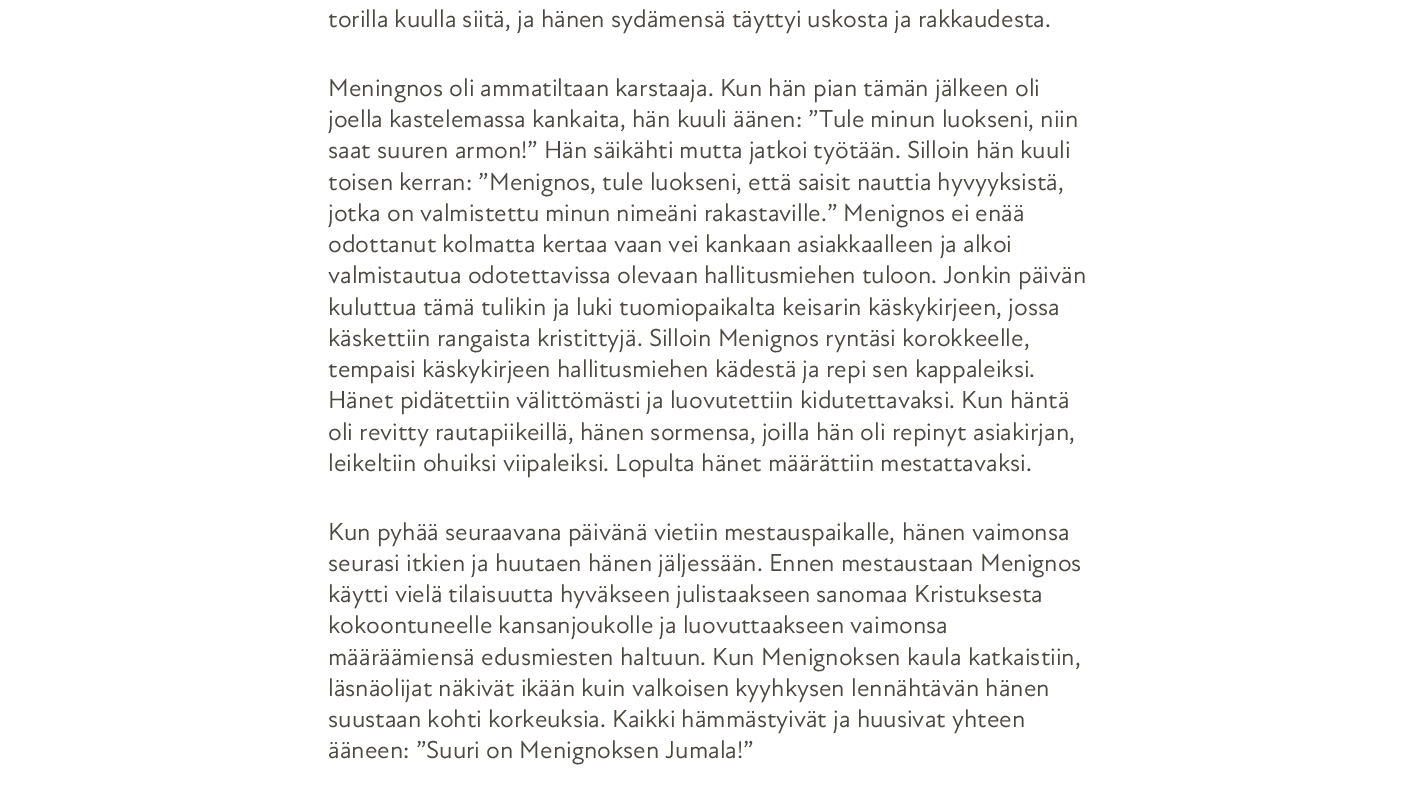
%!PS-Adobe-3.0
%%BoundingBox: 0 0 1426 801
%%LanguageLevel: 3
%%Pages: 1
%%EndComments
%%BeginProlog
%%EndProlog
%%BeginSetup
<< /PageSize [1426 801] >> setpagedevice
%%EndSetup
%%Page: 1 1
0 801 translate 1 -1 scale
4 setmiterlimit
1 setgray
0 0 1426 801 rectfill
/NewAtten-Regular [25 0 0 -25 0 0] selectfont
0.298 0.282 0.259 setrgbcolor
328 27 moveto (torilla kuulla siitä, ja hänen sydämensä täyttyi uskosta ja rakkaudesta.) show
328 96 moveto (Meningnos oli ammatiltaan karstaaja. Kun hän pian tämän jälkeen oli) show
328 127 moveto (joella kastelemassa kankaita, hän kuuli äänen: ”Tule minun luokseni, niin) show
328 158 moveto (saat suuren armon!” Hän säikähti mutta jatkoi työtään. Silloin hän kuuli) show
328 190 moveto (toisen kerran: ”Menignos, tule luokseni, että saisit nauttia hyvyyksistä,) show
328 221 moveto (jotka on valmistettu minun nimeäni rakastaville.” Menignos ei enää) show
328 252 moveto (odottanut kolmatta kertaa vaan vei kankaan asiakkaalleen ja alkoi) show
328 283 moveto (valmistautua odotettavissa olevaan hallitusmiehen tuloon. Jonkin päivän) show
328 315 moveto (kuluttua tämä tulikin ja luki tuomiopaikalta keisarin käskykirjeen, jossa) show
328 346 moveto (käskettiin rangaista kristittyjä. Silloin Menignos ryntäsi korokkeelle,) show
328 377 moveto (tempaisi käskykirjeen hallitusmiehen kädestä ja repi sen kappaleiksi.) show
328 408 moveto (Hänet pidätettiin välittömästi ja luovutettiin kidutettavaksi. Kun häntä) show
328 440 moveto (oli revitty rautapiikeillä, hänen sormensa, joilla hän oli repinyt asiakirjan,) show
328 471 moveto (leikeltiin ohuiksi viipaleiksi. Lopulta hänet määrättiin mestattavaksi.) show
328 540 moveto (Kun pyhää seuraavana päivänä vietiin mestauspaikalle, hänen vaimonsa) show
328 571 moveto (seurasi itkien ja huutaen hänen jäljessään. Ennen mestaustaan Menignos) show
328 602 moveto (käytti vielä tilaisuutta hyväkseen julistaakseen sanomaa Kristuksesta) show
328 633 moveto (kokoontuneelle kansanjoukolle ja luovuttaakseen vaimonsa) show
328 665 moveto (määräämiensä edusmiesten haltuun. Kun Menignoksen kaula katkaistiin,) show
328 696 moveto (läsnäolijat näkivät ikään kuin valkoisen kyyhkysen lennähtävän hänen) show
328 727 moveto (suustaan kohti korkeuksia. Kaikki hämmästyivät ja huusivat yhteen) show
328 758 moveto (ääneen: ”Suuri on Menignoksen Jumala!”) show
showpage
%%EOF
